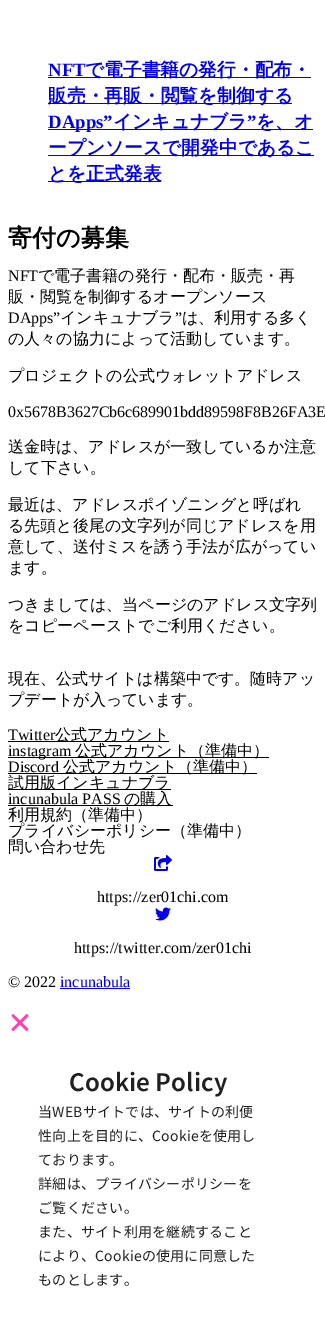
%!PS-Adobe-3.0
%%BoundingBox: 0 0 325 1343
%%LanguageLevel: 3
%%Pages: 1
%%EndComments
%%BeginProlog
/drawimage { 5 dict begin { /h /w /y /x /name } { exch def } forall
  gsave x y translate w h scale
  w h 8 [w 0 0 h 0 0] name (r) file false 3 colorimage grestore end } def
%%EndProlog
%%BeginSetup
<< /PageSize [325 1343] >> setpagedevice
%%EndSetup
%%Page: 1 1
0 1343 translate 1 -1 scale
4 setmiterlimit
1 setgray
0 0 325 1343 rectfill
0 0 0.933 setrgbcolor
48 77 263 1 rectfill
48 103 244 1 rectfill
48 129 265 1 rectfill
48 155 266 1 rectfill
48 181 113 1 rectfill
0 setgray
8 741 161 1 rectfill
8 757 261 1 rectfill
8 773 249 1 rectfill
8 789 163 1 rectfill
8 805 165 1 rectfill
(images/1.raw) 154 855 18 16 drawimage
(images/2.raw) 155 907 16 14 drawimage
0 0 0.933 setrgbcolor
60 988 70 1 rectfill
(images/3.raw) 11 1014 18 17 drawimage
/LiberationSerif-Bold [18.75 0 0 -18.75 0 0] selectfont
48 76 moveto (NFT) show
/WenQuanYiZenHei-Bold [18.75 0 0 -18.75 0 0] selectfont
85 76 moveto (で電子書籍の発行・配布・) show
48 102 moveto (販売・再販・閲覧を制御する) show
/LiberationSerif-Bold [18.75 0 0 -18.75 0 0] selectfont
48 128 moveto (DApps”) show
/WenQuanYiZenHei-Bold [18.75 0 0 -18.75 0 0] selectfont
113 128 moveto (インキュナブラ) show
/LiberationSerif-Bold [18.75 0 0 -18.75 0 0] selectfont
247 128 moveto (”) show
/WenQuanYiZenHei-Bold [18.75 0 0 -18.75 0 0] selectfont
256 128 moveto (を、オ) show
48 154 moveto (ープンソースで開発中であるこ) show
48 180 moveto (とを正式発表) show
/WenQuanYiZenHei-Bold [24 0 0 -24 0 0] selectfont
0 setgray
8 246 moveto (寄付の募集) show
/LiberationSerif-Regular [16 0 0 -16 0 0] selectfont
8 281 moveto (NFT) show
/WenQuanYiZenHei-Medium [16 0 0 -16 0 0] selectfont
38 281 moveto (で電子書籍の発行・配布・販売・再) show
8 302 moveto (販・閲覧を制御するオープンソース) show
/LiberationSerif-Regular [16 0 0 -16 0 0] selectfont
8 323 moveto (DApps”) show
/WenQuanYiZenHei-Medium [16 0 0 -16 0 0] selectfont
60 323 moveto (インキュナブラ) show
/LiberationSerif-Regular [16 0 0 -16 0 0] selectfont
175 323 moveto (”) show
/WenQuanYiZenHei-Medium [16 0 0 -16 0 0] selectfont
182 323 moveto (は、利用する多く) show
8 344 moveto (の人々の協力によって活動しています。) show
8 381 moveto (プロジェクトの公式ウォレットアドレス) show
/LiberationSerif-Regular [16 0 0 -16 0 0] selectfont
8 417 moveto (0x5678B3627Cb6c689901bdd89598F8B26FA3E) show
/WenQuanYiZenHei-Medium [16 0 0 -16 0 0] selectfont
8 452 moveto (送金時は、アドレスが一致しているか注意) show
8 473 moveto (して下さい。) show
8 510 moveto (最近は、アドレスポイゾニングと呼ばれ) show
8 531 moveto (る先頭と後尾の文字列が同じアドレスを用) show
8 552 moveto (意して、送付ミスを誘う手法が広がってい) show
8 573 moveto (ます。) show
8 610 moveto (つきましては、当ページのアドレス文字列) show
8 631 moveto (をコピーペーストでご利用ください。) show
8 684 moveto (現在、公式サイトは構築中です。随時アッ) show
8 705 moveto (プデートが入っています。) show
/LiberationSerif-Regular [16 0 0 -16 0 0] selectfont
8 740 moveto (Twitter) show
/WenQuanYiZenHei-Medium [16 0 0 -16 0 0] selectfont
55 740 moveto (公式アカウント) show
/LiberationSerif-Regular [16 0 0 -16 0 0] selectfont
8 756 moveto (instagram) show
/WenQuanYiZenHei-Medium [16 0 0 -16 0 0] selectfont
75 756 moveto (公式アカウント（準備中）) show
/LiberationSerif-Regular [16 0 0 -16 0 0] selectfont
8 772 moveto (Discord) show
/WenQuanYiZenHei-Medium [16 0 0 -16 0 0] selectfont
63 772 moveto (公式アカウント（準備中）) show
8 788 moveto (試用版インキュナブラ) show
/LiberationSerif-Regular [16 0 0 -16 0 0] selectfont
8 804 moveto (incunabula PASS) show
/WenQuanYiZenHei-Medium [16 0 0 -16 0 0] selectfont
124 804 moveto (の購入) show
8 820 moveto (利用規約（準備中）) show
8 836 moveto (プライバシーポリシー（準備中）) show
8 852 moveto (問い合わせ先) show
/LiberationSerif-Regular [16 0 0 -16 0 0] selectfont
97 902 moveto (https://zer01chi.com) show
74 953 moveto (https://twitter.com/zer01chi) show
8 987 moveto (© 2022) show
0 0 0.933 setrgbcolor
60 987 moveto (incunabula) show
/NotoSansJP-SemiBold [24 0 0 -24 0 0] selectfont
0.125 setgray
69 1091 moveto 0.1 0 (Cookie Policy) ashow
/NotoSansJP-Regular [14 0 0 -14 0 0] selectfont
38 1117 moveto 0.25 0 (当WEBサイトでは、サイトの利便) ashow
38 1141 moveto 0.25 0 (性向上を目的に、Cookieを使用し) ashow
38 1165 moveto 0.25 0 (ております。) ashow
38 1189 moveto 0.25 0 (詳細は、プライバシーポリシーを) ashow
38 1213 moveto 0.25 0 (ご覧ください。) ashow
38 1237 moveto 0.25 0 (また、サイト利用を継続すること) ashow
38 1261 moveto 0.25 0 (により、Cookieの使用に同意した) ashow
38 1285 moveto 0.25 0 (ものとします。) ashow
showpage
%%EOF
